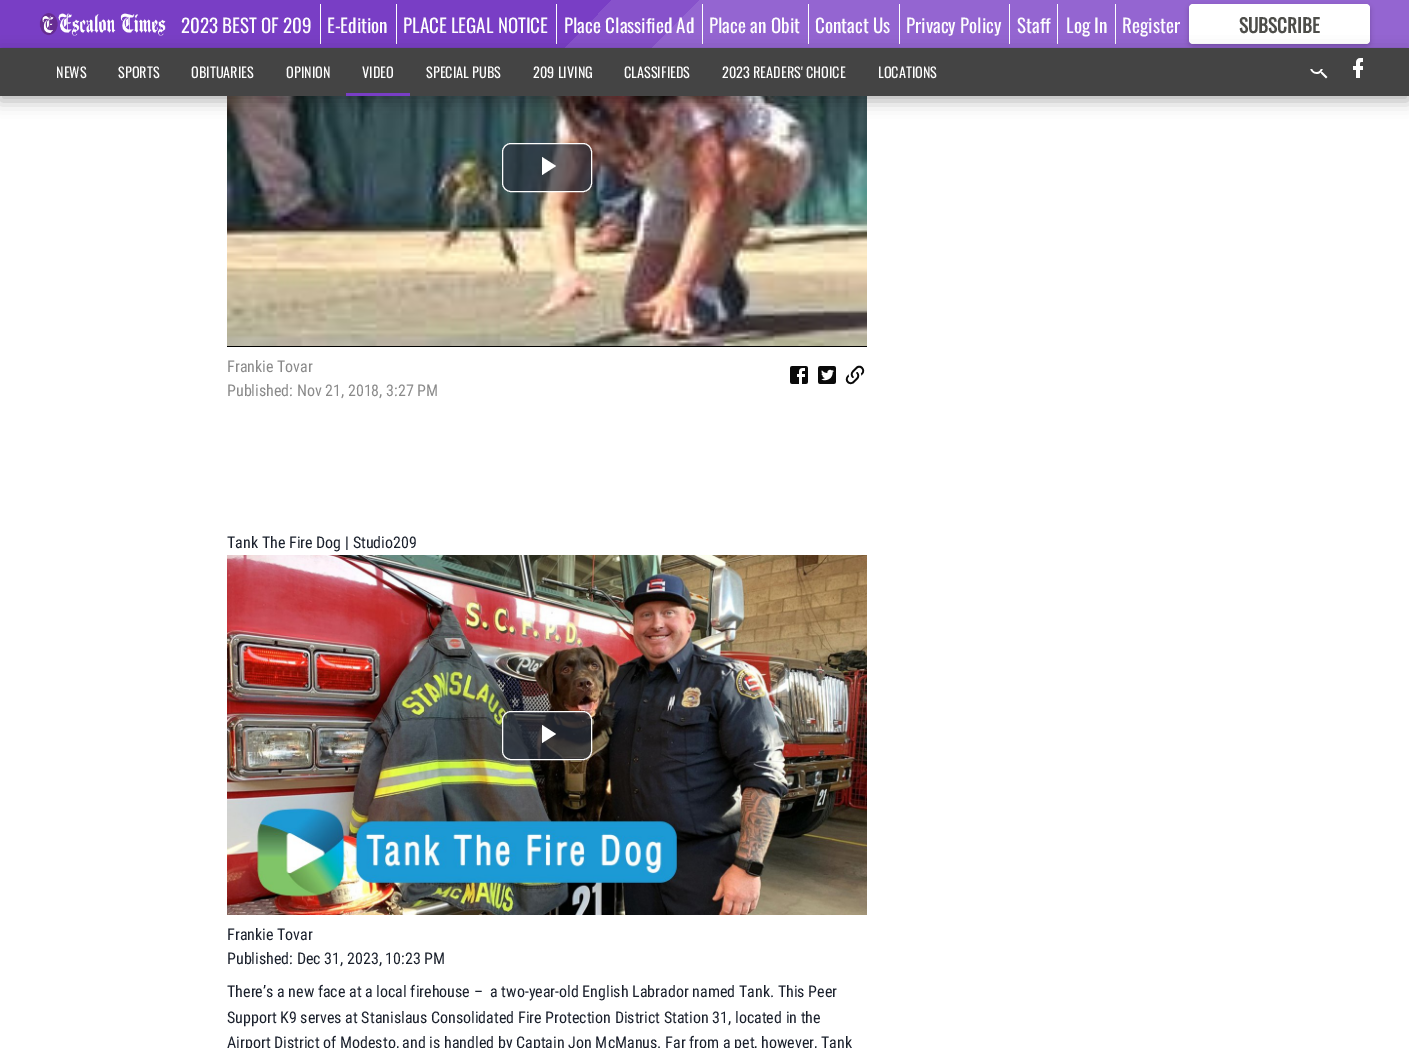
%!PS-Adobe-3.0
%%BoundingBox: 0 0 1409 1048
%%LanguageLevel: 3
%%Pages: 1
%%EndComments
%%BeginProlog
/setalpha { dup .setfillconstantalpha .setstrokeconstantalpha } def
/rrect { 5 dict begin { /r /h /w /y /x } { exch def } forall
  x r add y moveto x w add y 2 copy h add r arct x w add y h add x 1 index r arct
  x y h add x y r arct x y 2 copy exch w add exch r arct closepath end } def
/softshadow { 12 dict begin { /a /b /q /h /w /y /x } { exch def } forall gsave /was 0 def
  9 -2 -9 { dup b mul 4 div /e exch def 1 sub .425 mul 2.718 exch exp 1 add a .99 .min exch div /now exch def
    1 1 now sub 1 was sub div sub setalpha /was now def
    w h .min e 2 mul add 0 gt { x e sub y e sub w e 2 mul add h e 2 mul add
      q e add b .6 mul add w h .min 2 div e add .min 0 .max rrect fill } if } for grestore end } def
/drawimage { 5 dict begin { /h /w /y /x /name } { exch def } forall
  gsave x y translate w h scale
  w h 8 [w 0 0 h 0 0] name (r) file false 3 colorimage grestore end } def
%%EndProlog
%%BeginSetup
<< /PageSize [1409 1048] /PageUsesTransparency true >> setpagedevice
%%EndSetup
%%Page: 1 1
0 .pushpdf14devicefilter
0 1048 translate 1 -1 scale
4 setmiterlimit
1 setgray
0 0 1409 1048 rectfill
gsave newpath 0 0 moveto 1409 0 lineto 1409 48 lineto 0 48 lineto closepath clip newpath
<< /ShadingType 2 /ColorSpace /DeviceRGB /Coords [340 -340 1069 388] /Extend [true true] /Function << /FunctionType 3 /Domain [0 1] /Functions [<< /FunctionType 2 /Domain [0 1] /C0 [0.475 0.243 0.773] /C1 [0.475 0.243 0.773] /N 1 >> << /FunctionType 2 /Domain [0 1] /C0 [0.529 0.322 0.796] /C1 [0.529 0.322 0.796] /N 1 >> << /FunctionType 2 /Domain [0 1] /C0 [0.58 0.396 0.82] /C1 [0.58 0.396 0.82] /N 1 >>] /Bounds [0.42 0.48] /Encode [0 1 0 1 0 1] >> >> shfill grestore
(images/1.raw) 39 13 127 23 drawimage
0.996 setgray
320 4 1 40 rectfill
396 4 1 40 rectfill
556 4 1 40 rectfill
702 4 1 40 rectfill
808 4 1 40 rectfill
899 4 1 40 rectfill
1057 4 1 40 rectfill
1009 4 1 40 rectfill
1115 4 1 40 rectfill
0 setgray
1189 6 181 40 4 2.5 0.2 softshadow
1 setgray
1189 4 181 40 4 rrect fill
(images/4.raw) 227 96 640 250 drawimage
0 setgray
0 53 1409 48 0 8 0.3 softshadow
0.267 setgray
0 48 1409 48 rectfill
0.475 0.243 0.773 setrgbcolor
346 93 64 3 rectfill
(images/2.raw) 1310 69 18 10 drawimage
(images/3.raw) 1353 58 10 20 drawimage
0 setgray
227 346 640 1 rectfill
0.7 setalpha
0.169 0.2 0.247 setrgbcolor
502.5 143.5 89 48 8.5 rrect fill
1 setalpha
1 setgray
502.5 143.5 89 48 8.5 rrect stroke
newpath 542 157 moveto 542 175 lineto 556 166 lineto closepath fill
(images/5.raw) 790 366 18 18 drawimage
(images/6.raw) 818 366 18 18 drawimage
(images/7.raw) 845 365 20 20 drawimage
(images/8.raw) 227 555 640 360 drawimage
0.7 setalpha
0.169 0.2 0.247 setrgbcolor
502.5 711.5 89 48 8.5 rrect fill
1 setalpha
1 setgray
502.5 711.5 89 48 8.5 rrect stroke
newpath 542 725 moveto 542 743 lineto 556 734 lineto closepath fill
/Oswald-Regular [19 0 0 -19 0 0] selectfont
0.996 setgray
181 33 moveto (2023 BEST OF 209) show
327 33 moveto (E-Edition) show
403 33 moveto (PLACE LEGAL NOTICE) show
564 33 moveto (Place Classified Ad) show
709 33 moveto (Place an Obit) show
815 33 moveto (Contact Us) show
906 33 moveto (Privacy Policy) show
1017 33 moveto (Staff) show
1066 33 moveto (Log In) show
1122 33 moveto (Register) show
/Oswald-Bold [19 0 0 -19 0 0] selectfont
0.302 0.302 0.286 setrgbcolor
1239 33 moveto (SUBSCRIBE) show
/Oswald-Regular [14.25 0 0 -14.25 0 0] selectfont
0.996 setgray
56 78 moveto (NEWS) show
118 78 moveto (SPORTS) show
191 78 moveto (OBITUARIES) show
286 78 moveto (OPINION) show
362 78 moveto (VIDEO) show
426 78 moveto (SPECIAL PUBS) show
533 78 moveto (209 LIVING) show
624 78 moveto (CLASSIFIEDS) show
722 78 moveto (2023 READERS' CHOICE) show
878 78 moveto (LOCATIONS) show
/RobotoCondensed-Regular [16 0 0 -16 0 0] selectfont
0.541 setgray
227 372 moveto (Frankie Tovar) show
227 396 moveto (Published: Nov 21, 2018, 3:27 PM) show
0.102 0.125 0.173 setrgbcolor
227 548 moveto (Tank The Fire Dog | Studio209) show
227 940 moveto (Frankie Tovar) show
227 964 moveto (Published: Dec 31, 2023, 10:23 PM) show
227 997 moveto (There’s a new face at a local firehouse –  a two-year-old English Labrador named Tank. This Peer) show
227 1023 moveto (Support K9 serves at Stanislaus Consolidated Fire Protection District Station 31, located in the) show
227 1048 moveto (Airport District of Modesto, and is handled by Captain Jon McManus. Far from a pet, however, Tank) show
.poppdf14devicefilter showpage
%%EOF
